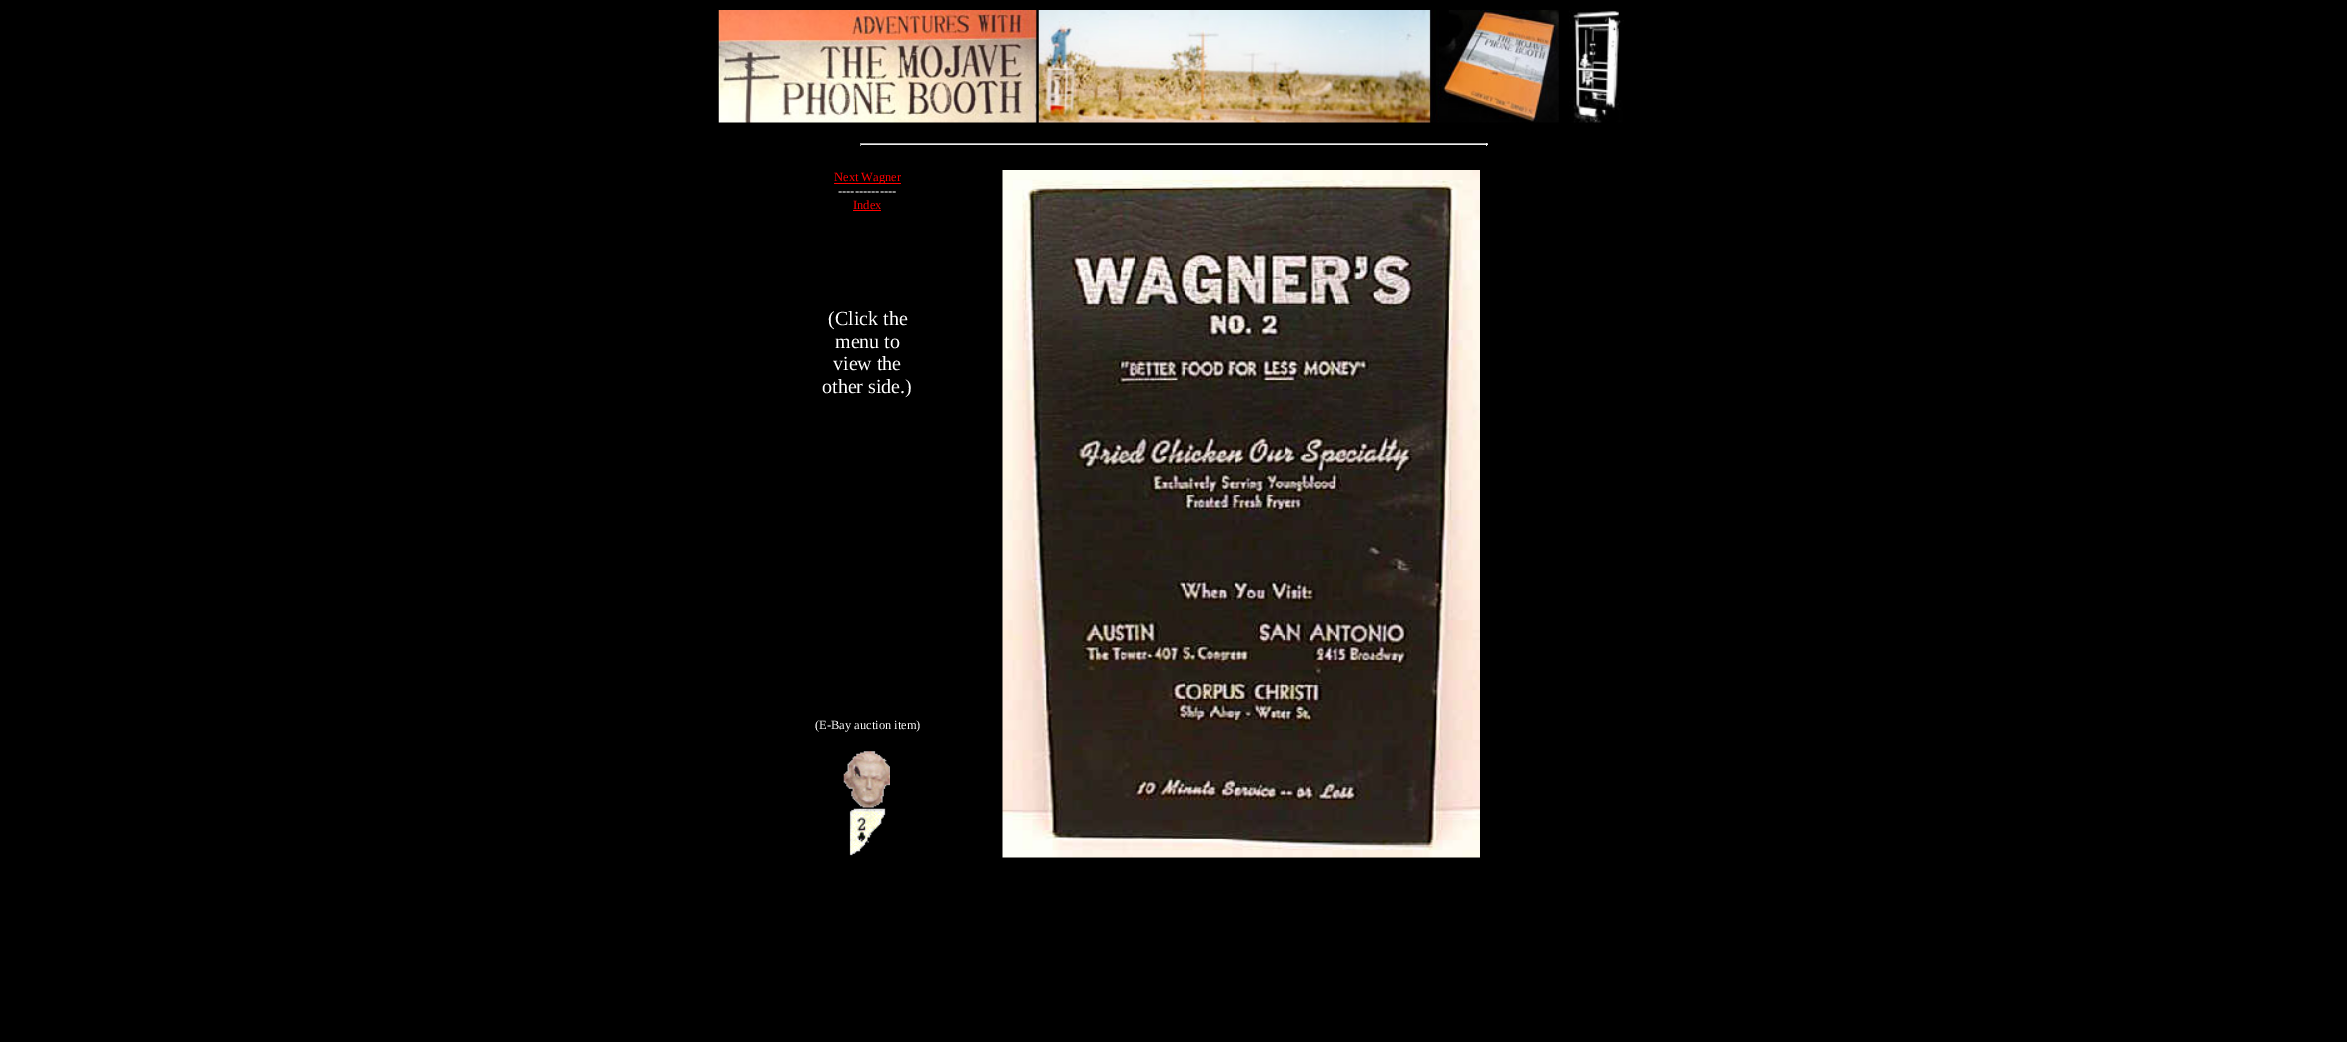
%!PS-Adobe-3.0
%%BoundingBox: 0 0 2347 1042
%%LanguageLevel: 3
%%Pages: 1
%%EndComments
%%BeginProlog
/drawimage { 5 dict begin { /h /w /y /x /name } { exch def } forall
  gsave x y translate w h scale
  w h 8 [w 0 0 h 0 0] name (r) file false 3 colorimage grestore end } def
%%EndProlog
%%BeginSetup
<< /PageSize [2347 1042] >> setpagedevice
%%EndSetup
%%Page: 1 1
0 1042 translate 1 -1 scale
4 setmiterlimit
0 setgray
0 0 2347 1042 rectfill
(images/1.raw) 718 10 906 113 drawimage
0.624 setgray
860 143 628 1 rectfill
0.933 setgray
1486 143 1 3 rectfill
860 144 628 1 rectfill
0.624 setgray
860 143 1 3 rectfill
1 0 0 setrgbcolor
834 183 67 1 rectfill
853 210 28 1 rectfill
(images/2.raw) 1002 170 478 688 drawimage
(images/3.raw) 843 751 47 57 drawimage
(images/4.raw) 849 808 37 48 drawimage
/LiberationSerif-Regular [12.5 0 0 -12.5 0 0] selectfont
834 181 moveto (Next Wagner) show
1 setgray
838 195 moveto (--------------) show
1 0 0 setrgbcolor
853 209 moveto (Index) show
/LiberationSerif-Regular [20 0 0 -20 0 0] selectfont
1 setgray
828 325 moveto (\(Click the) show
835 348 moveto (menu to) show
833 370 moveto (view the) show
822 393 moveto (other side.\)) show
/LiberationSerif-Regular [12.5 0 0 -12.5 0 0] selectfont
815 729 moveto (\(E-Bay auction item\)) show
showpage
%%EOF
